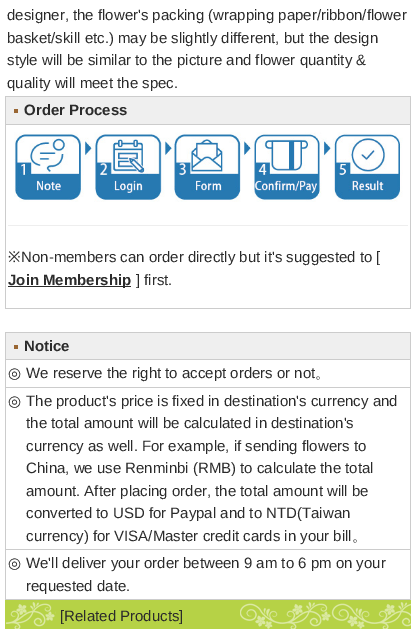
%!PS-Adobe-3.0
%%BoundingBox: 0 0 411 629
%%LanguageLevel: 3
%%Pages: 1
%%EndComments
%%BeginProlog
/drawimage { 5 dict begin { /h /w /y /x /name } { exch def } forall
  gsave x y translate w h scale
  w h 8 [w 0 0 h 0 0] name (r) file false 3 colorimage grestore end } def
%%EndProlog
%%BeginSetup
<< /PageSize [411 629] >> setpagedevice
%%EndSetup
%%Page: 1 1
0 629 translate 1 -1 scale
4 setmiterlimit
1 setgray
0 0 411 629 rectfill
0.8 setgray
5 96 406 213 rectfill
0.937 setgray
6 97 404 27 rectfill
0.6 0.4 0.2 setrgbcolor
14 109 4 4 rectfill
1 setgray
6 125 404 183 rectfill
(images/1.raw) 14 132 389 70 drawimage
0.933 setgray
8 225 400 1 rectfill
0.169 setgray
8 286 123 1 rectfill
0.8 setgray
5 332 406 268 rectfill
0.937 setgray
6 333 404 26 rectfill
0.6 0.4 0.2 setrgbcolor
14 345 4 4 rectfill
1 setgray
6 360 404 27 rectfill
6 388 404 161 rectfill
6 550 404 49 rectfill
(images/2.raw) 5 600 55 29 drawimage
0.714 0.824 0.275 setrgbcolor
60 600 180 29 rectfill
(images/3.raw) 240 600 171 29 drawimage
/LiberationSans-Regular [15 0 0 -15 0 0] selectfont
0.169 setgray
7 20 moveto (designer, the flower's packing \(wrapping paper/ribbon/flower) show
7 43 moveto (basket/skill etc.\) may be slightly different, but the design) show
7 65 moveto (style will be similar to the picture and flower quantity &) show
7 88 moveto (quality will meet the spec.) show
/LiberationSans-Bold [15 0 0 -15 0 0] selectfont
24 115 moveto (Order Process) show
/NotoSans-Regular [15 0 0 -15 0 0] selectfont
8 262 moveto (※) show
/LiberationSans-Regular [15 0 0 -15 0 0] selectfont
21 262 moveto (Non-members can order directly but it's suggested to [) show
/LiberationSans-Bold [15 0 0 -15 0 0] selectfont
8 285 moveto (Join Membership) show
/LiberationSans-Regular [15 0 0 -15 0 0] selectfont
136 285 moveto (] first.) show
/LiberationSans-Bold [15 0 0 -15 0 0] selectfont
24 351 moveto (Notice) show
/DejaVuSans-Regular [15 0 0 -15 0 0] selectfont
8 378 moveto (◎) show
/LiberationSans-Regular [15 0 0 -15 0 0] selectfont
26 378 moveto (We reserve the right to accept orders or not) show
/WenQuanYiZenHei-Medium [15 0 0 -15 0 0] selectfont
315 378 moveto (。) show
/DejaVuSans-Regular [15 0 0 -15 0 0] selectfont
8 406 moveto (◎) show
/LiberationSans-Regular [15 0 0 -15 0 0] selectfont
26 406 moveto (The product's price is fixed in destination's currency and) show
26 428 moveto (the total amount will be calculated in destination's) show
26 451 moveto (currency as well. For example, if sending flowers to) show
26 473 moveto (China, we use Renminbi \(RMB\) to calculate the total) show
26 496 moveto (amount. After placing order, the total amount will be) show
26 518 moveto (converted to USD for Paypal and to NTD\(Taiwan) show
26 541 moveto (currency\) for VISA/Master credit cards in your bill) show
/WenQuanYiZenHei-Medium [15 0 0 -15 0 0] selectfont
352 541 moveto (。) show
/DejaVuSans-Regular [15 0 0 -15 0 0] selectfont
8 568 moveto (◎) show
/LiberationSans-Regular [15 0 0 -15 0 0] selectfont
26 568 moveto (We'll deliver your order between 9 am to 6 pm on your) show
26 591 moveto (requested date.) show
60 621 moveto ([Related Products]) show
showpage
%%EOF
